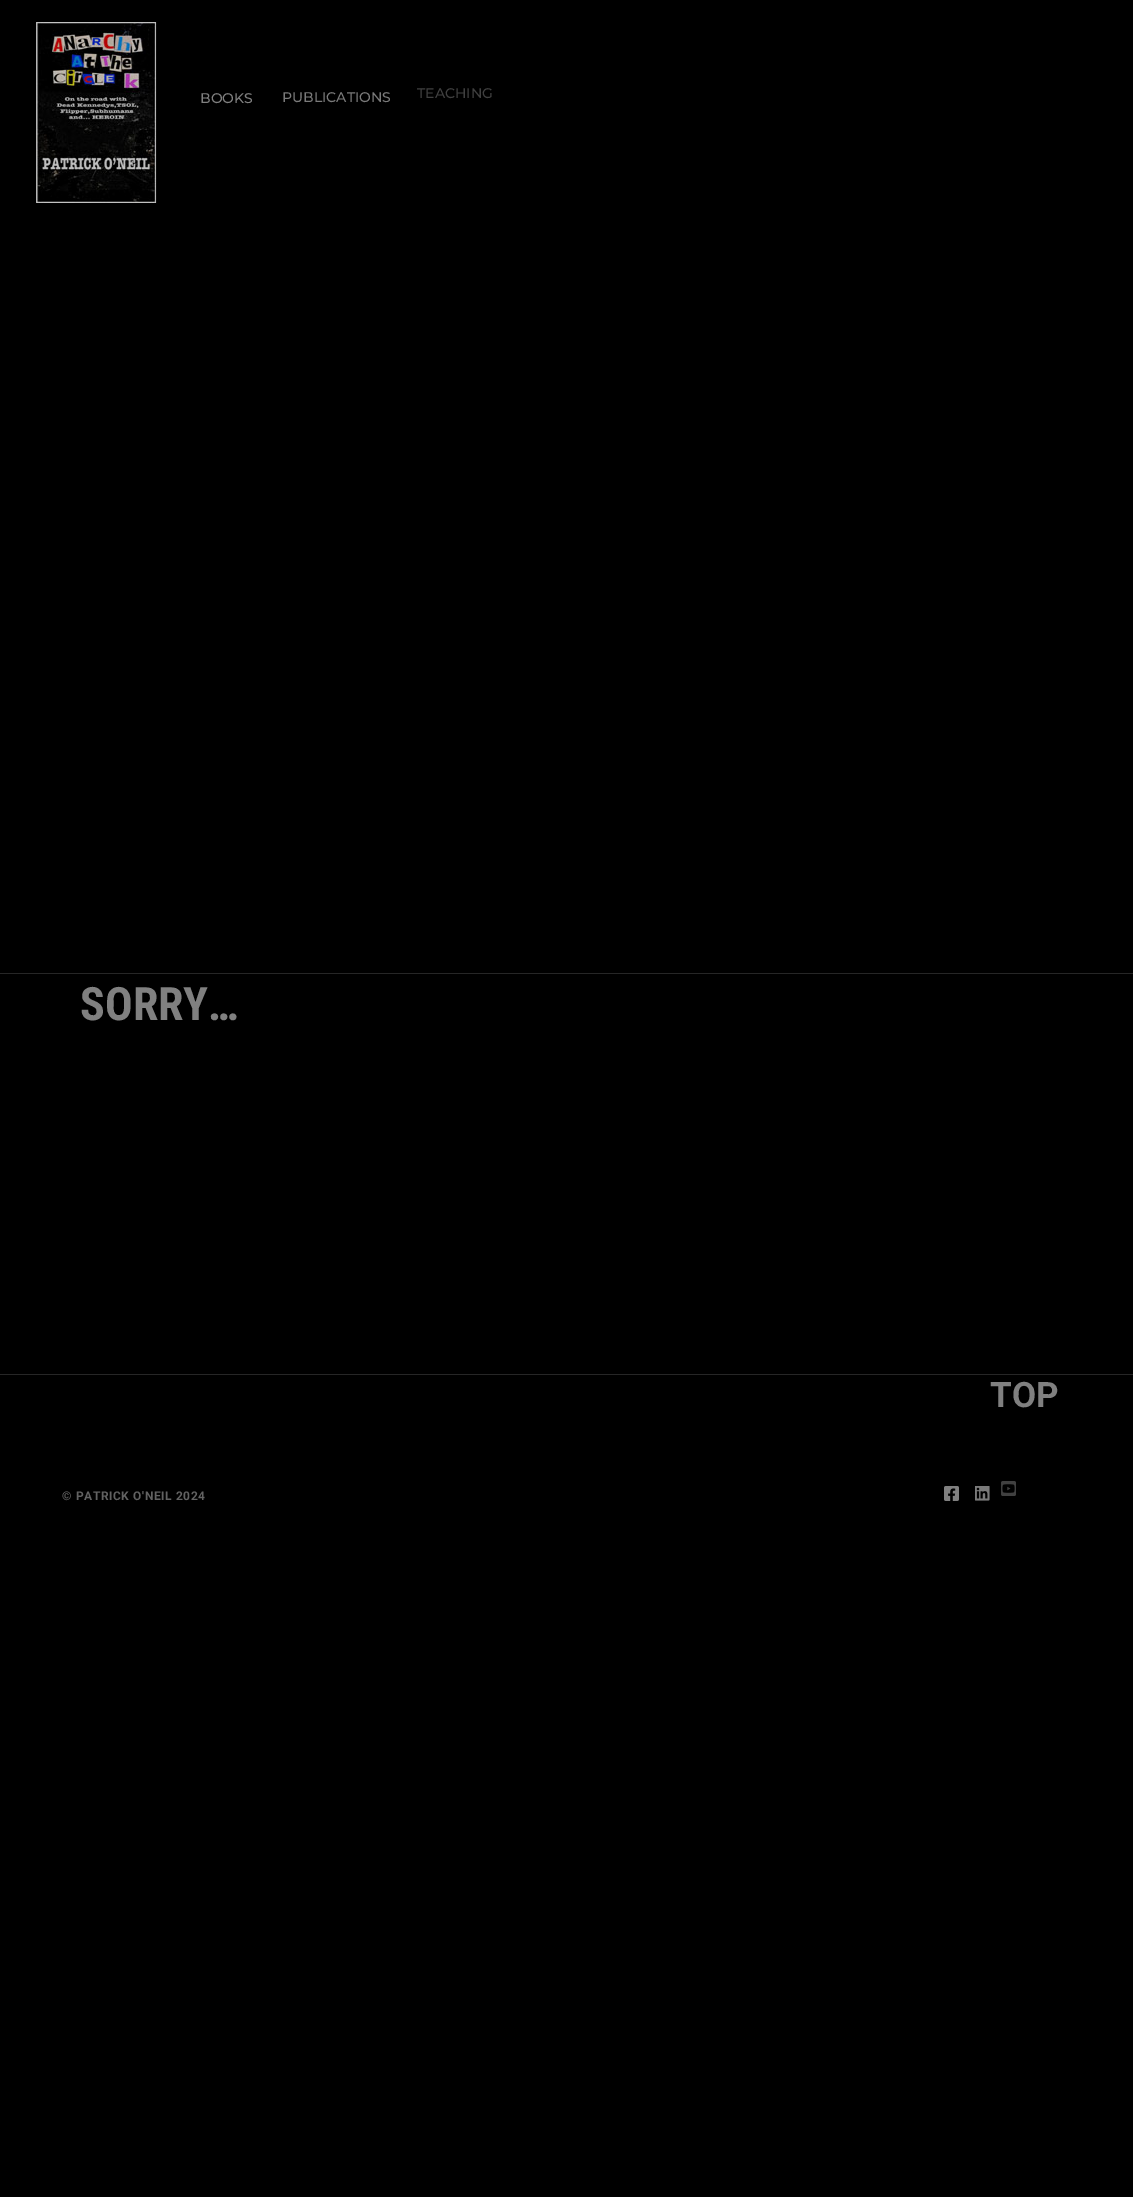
%!PS-Adobe-3.0
%%BoundingBox: 0 0 1133 2197
%%LanguageLevel: 3
%%Pages: 1
%%EndComments
%%BeginProlog
/drawimage { 5 dict begin { /h /w /y /x /name } { exch def } forall
  gsave x y translate w h scale
  w h 8 [w 0 0 h 0 0] name (r) file false 3 colorimage grestore end } def
%%EndProlog
%%BeginSetup
<< /PageSize [1133 2197] >> setpagedevice
%%EndSetup
%%Page: 1 1
0 2197 translate 1 -1 scale
4 setmiterlimit
0 setgray
0 0 1133 2197 rectfill
(images/1.raw) 36 22 121 181 drawimage
0.149 setgray
0 973 1133 1 rectfill
0 1374 1133 1 rectfill
(images/2.raw) 944 1486 15 15 drawimage
(images/3.raw) 975 1486 15 15 drawimage
(images/4.raw) 1001 1481 15 15 drawimage
/Montserrat-Medium [14 0 0 -14 0 0] selectfont
0.502 setgray
200 103 moveto (BOOKS) show
0.478 setgray
282 102 moveto (PUBLICATIONS) show
0.251 setgray
417 98 moveto (TEACHING) show
/RobotoCondensed-Bold [46 0 0 -46 0 0] selectfont
0.502 setgray
80 1020 moveto (SORRY…) show
/Roboto-Bold [35 0 0 -35 0 0] selectfont
990 1407 moveto (TOP) show
/Roboto-Bold [12 0 0 -12 0 0] selectfont
0.384 setgray
62 1500 moveto 0.6 0 (© PATRICK O'NEIL 2024) ashow
showpage
%%EOF
